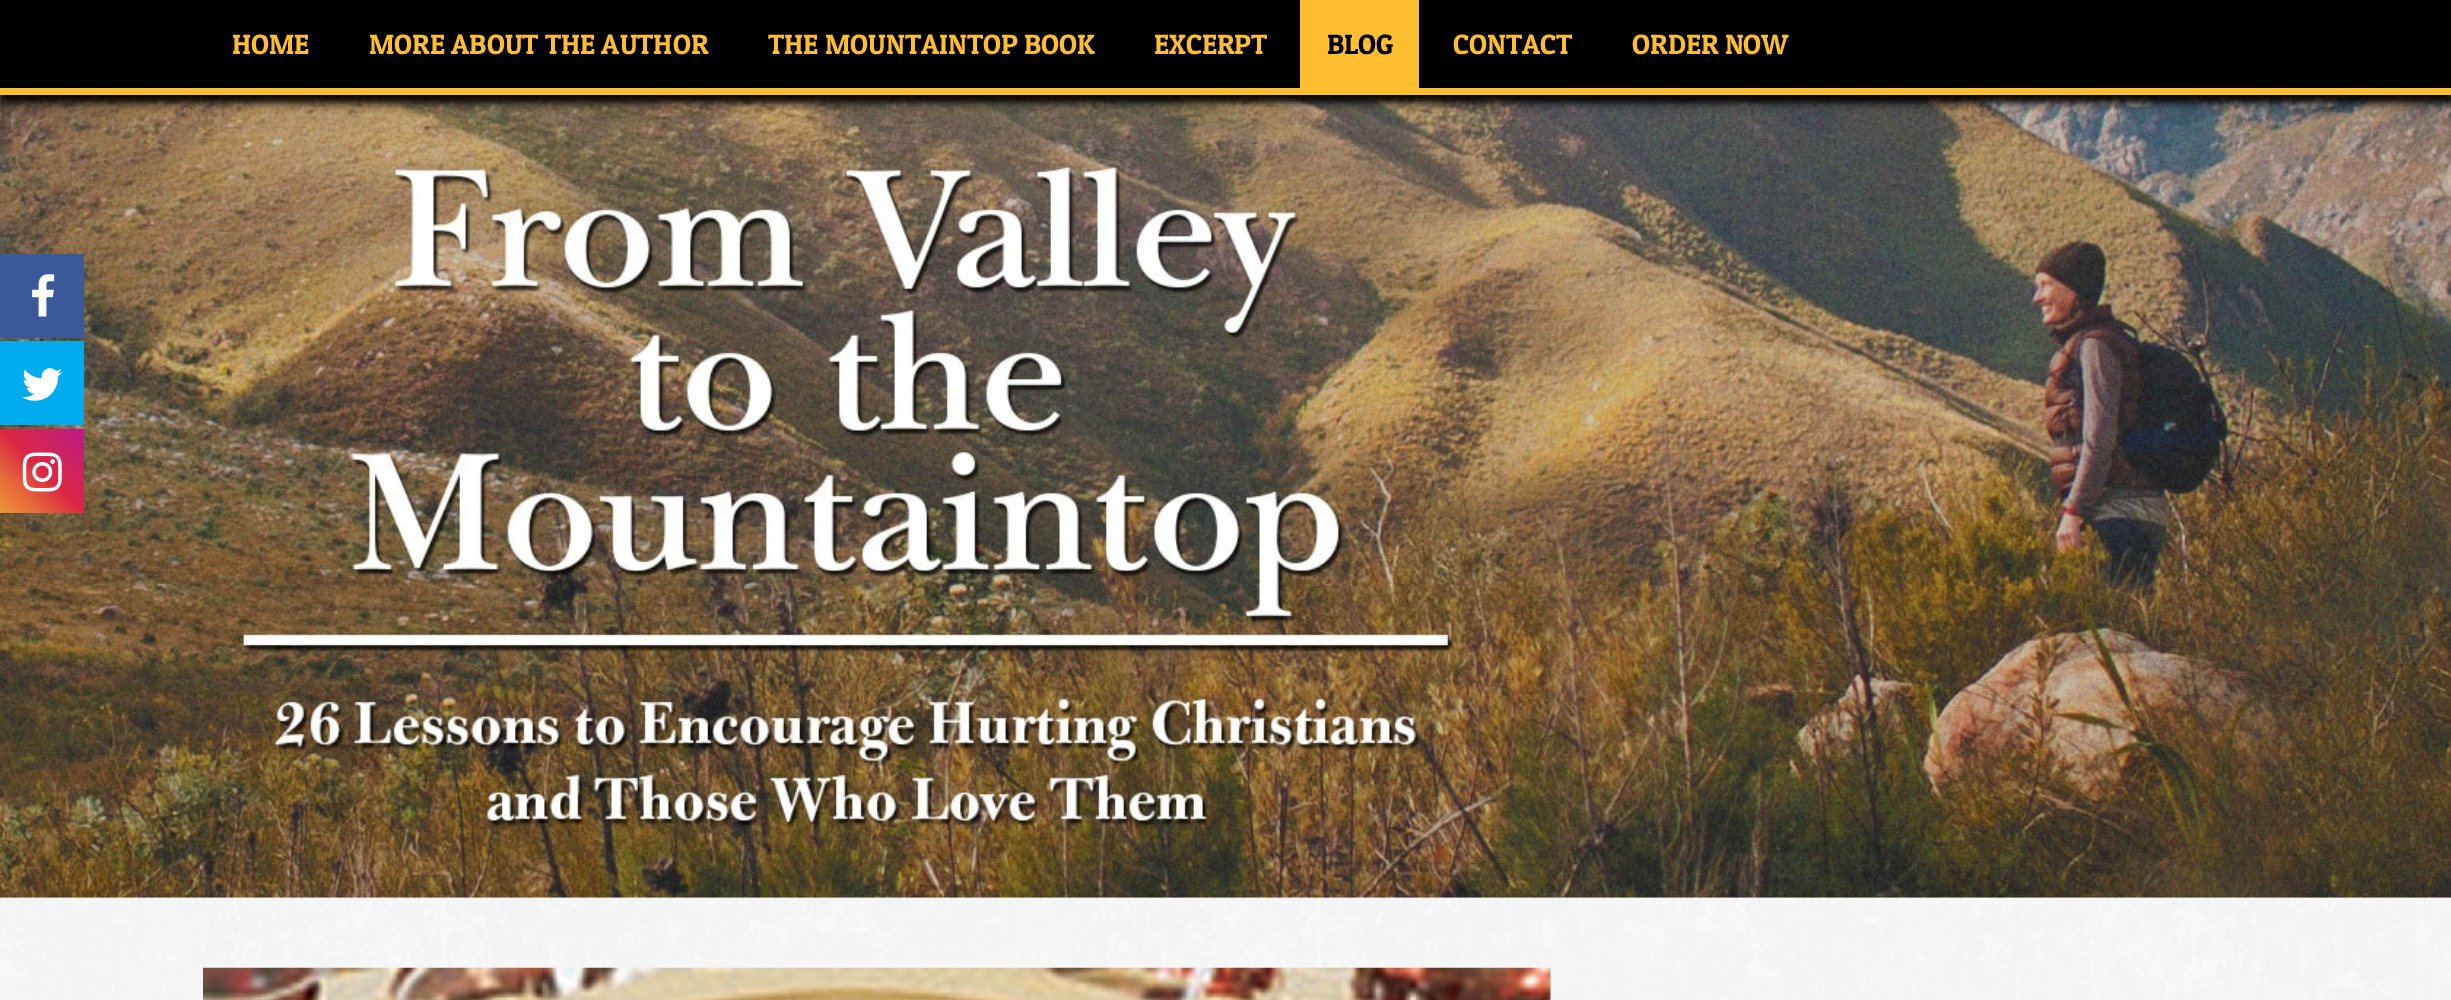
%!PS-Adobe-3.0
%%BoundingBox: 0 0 2451 1000
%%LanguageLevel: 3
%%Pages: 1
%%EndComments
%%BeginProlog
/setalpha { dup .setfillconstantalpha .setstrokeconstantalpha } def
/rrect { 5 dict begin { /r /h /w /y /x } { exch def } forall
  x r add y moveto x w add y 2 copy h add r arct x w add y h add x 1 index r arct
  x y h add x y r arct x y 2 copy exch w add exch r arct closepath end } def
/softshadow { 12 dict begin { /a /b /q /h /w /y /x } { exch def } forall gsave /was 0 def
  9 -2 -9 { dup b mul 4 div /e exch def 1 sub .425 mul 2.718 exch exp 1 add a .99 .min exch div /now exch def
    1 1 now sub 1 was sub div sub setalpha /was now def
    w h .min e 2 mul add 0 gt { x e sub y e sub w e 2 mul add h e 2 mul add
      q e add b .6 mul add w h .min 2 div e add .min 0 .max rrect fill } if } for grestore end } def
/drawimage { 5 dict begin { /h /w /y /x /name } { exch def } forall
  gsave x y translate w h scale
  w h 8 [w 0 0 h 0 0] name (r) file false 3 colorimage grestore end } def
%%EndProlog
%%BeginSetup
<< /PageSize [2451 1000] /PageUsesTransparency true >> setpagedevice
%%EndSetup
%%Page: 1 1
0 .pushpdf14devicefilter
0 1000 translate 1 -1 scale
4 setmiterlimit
1 setgray
0 0 2451 1000 rectfill
(images/1.raw) 0 897 2451 103 drawimage
(images/2.raw) 0 95 2451 803 drawimage
0 setgray
0 9 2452 94 0 4.5 1 softshadow
0 0 2451 88 rectfill
1 0.741 0.188 setrgbcolor
0 88 2451 7 rectfill
1300 0 119 88 rectfill
(images/3.raw) 203 967 1348 33 drawimage
0.231 0.349 0.596 setrgbcolor
0 254 84 84 rectfill
(images/4.raw) 32 274 23 43 drawimage
0 0.675 0.929 setrgbcolor
0 341 84 84 rectfill
(images/5.raw) 22 368 40 33 drawimage
gsave newpath 0 429 moveto 84 429 lineto 84 513 lineto 0 513 lineto closepath clip newpath
<< /ShadingType 2 /ColorSpace /DeviceRGB /Coords [0 513 84 429] /Extend [true true] /Function << /FunctionType 3 /Domain [0 1] /Functions [<< /FunctionType 2 /Domain [0 1] /C0 [0.941 0.58 0.2] /C1 [0.902 0.408 0.235] /N 1 >> << /FunctionType 2 /Domain [0 1] /C0 [0.902 0.408 0.235] /C1 [0.863 0.153 0.263] /N 1 >> << /FunctionType 2 /Domain [0 1] /C0 [0.863 0.153 0.263] /C1 [0.8 0.137 0.4] /N 1 >> << /FunctionType 2 /Domain [0 1] /C0 [0.8 0.137 0.4] /C1 [0.737 0.094 0.533] /N 1 >>] /Bounds [0.25 0.5 0.75] /Encode [0 1 0 1 0 1 0 1] >> >> shfill grestore
(images/6.raw) 22 452 40 40 drawimage
/PatuaOne-Regular [28 0 0 -28 0 0] selectfont
1 0.741 0.188 setrgbcolor
232 54 moveto (HOME) show
369 54 moveto (MORE ABOUT THE AUTHOR) show
768 54 moveto (THE MOUNTAINTOP BOOK) show
1154 54 moveto (EXCERPT) show
0 setgray
1327 54 moveto (BLOG) show
1 0.741 0.188 setrgbcolor
1453 54 moveto (CONTACT) show
1632 54 moveto (ORDER NOW) show
.poppdf14devicefilter showpage
%%EOF
